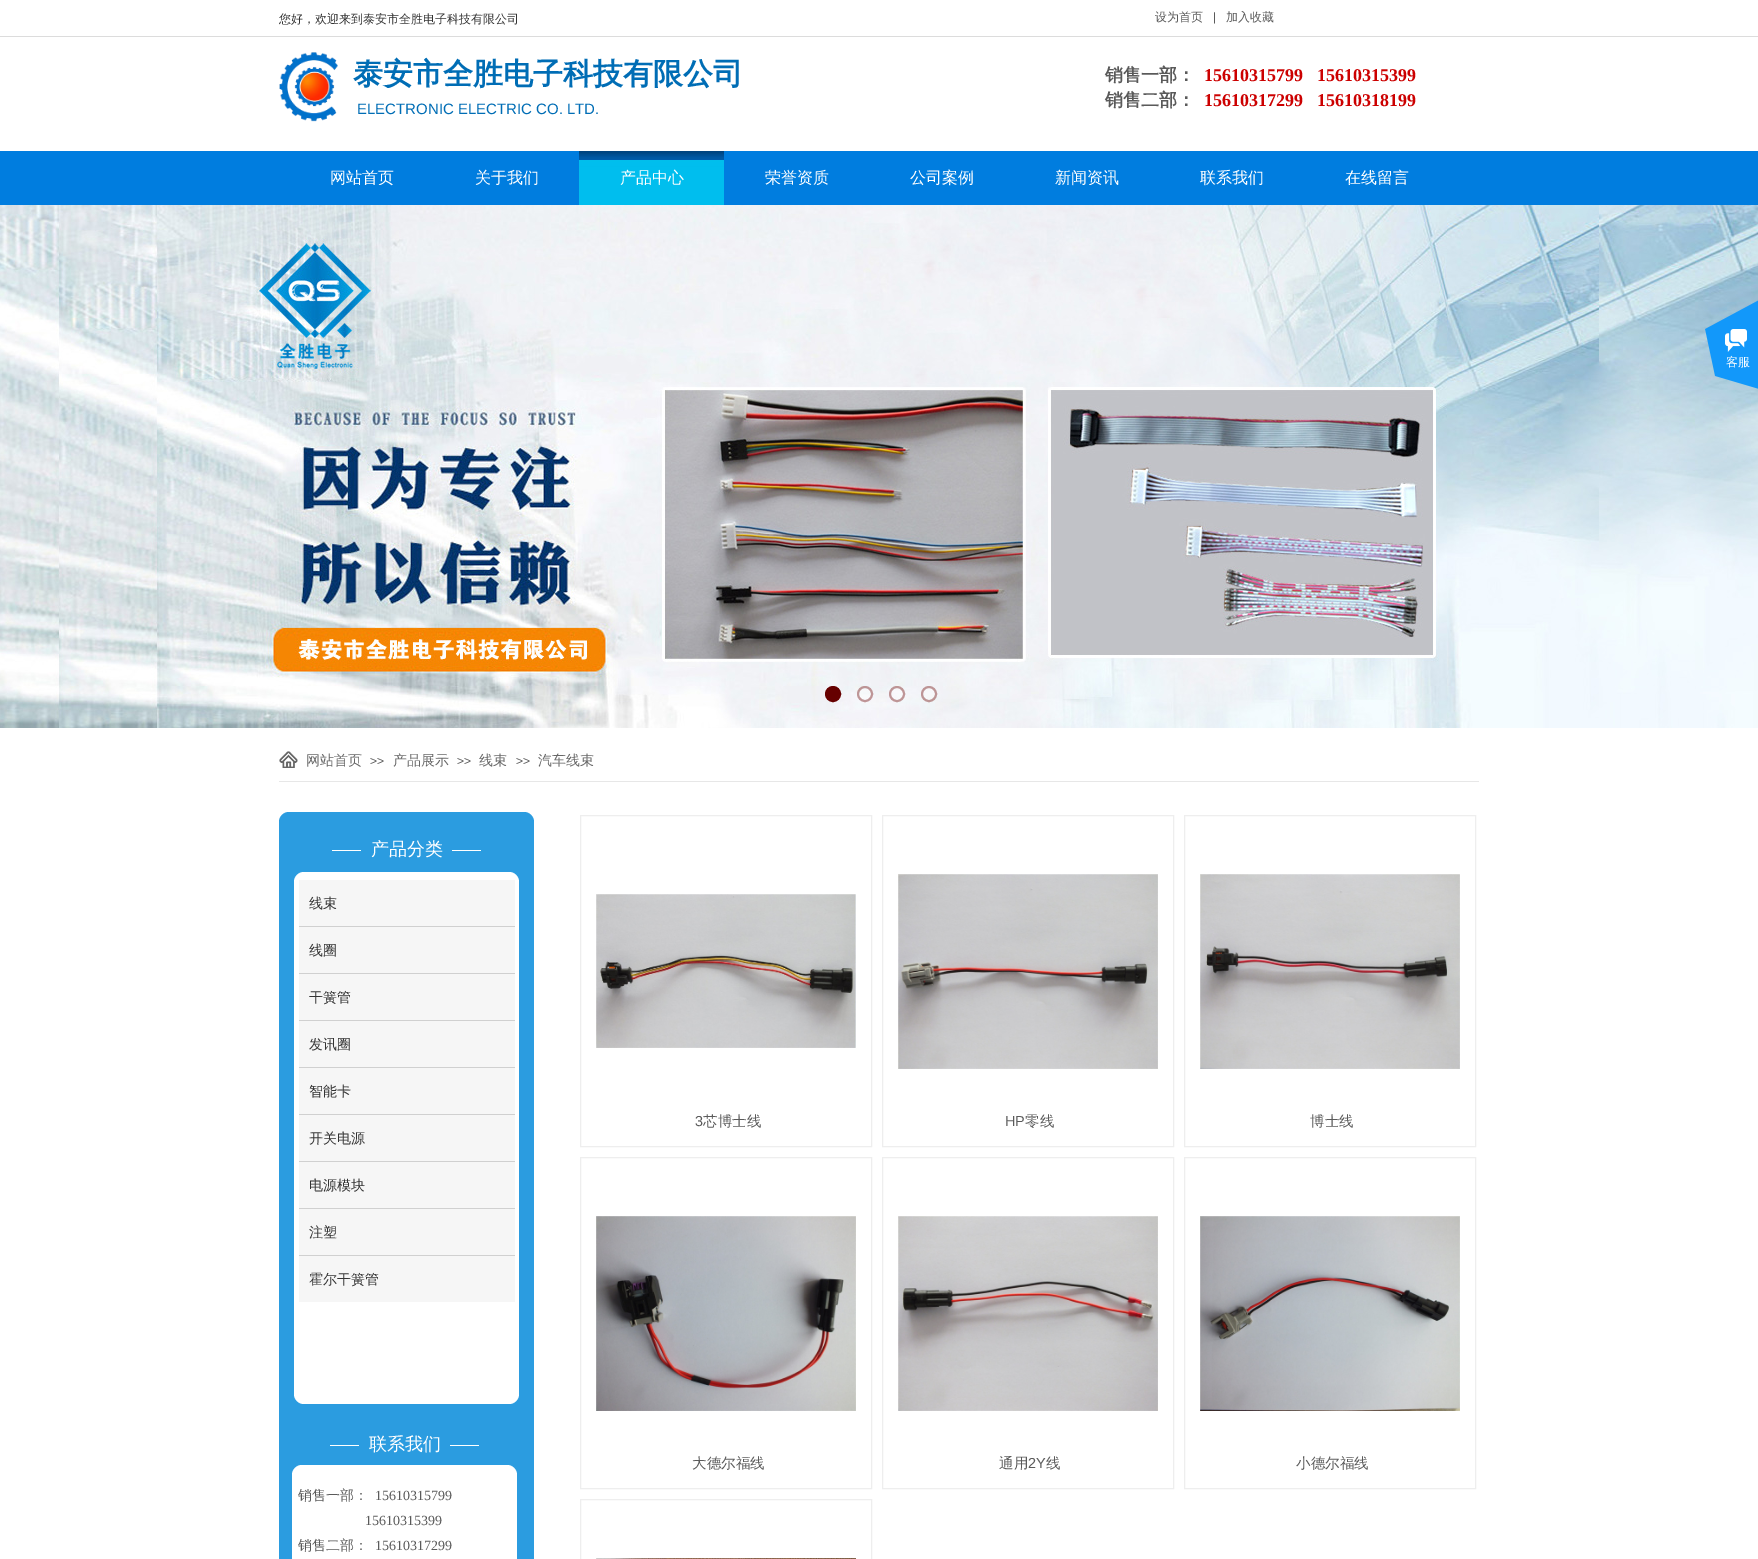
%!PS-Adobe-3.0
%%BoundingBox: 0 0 1758 1559
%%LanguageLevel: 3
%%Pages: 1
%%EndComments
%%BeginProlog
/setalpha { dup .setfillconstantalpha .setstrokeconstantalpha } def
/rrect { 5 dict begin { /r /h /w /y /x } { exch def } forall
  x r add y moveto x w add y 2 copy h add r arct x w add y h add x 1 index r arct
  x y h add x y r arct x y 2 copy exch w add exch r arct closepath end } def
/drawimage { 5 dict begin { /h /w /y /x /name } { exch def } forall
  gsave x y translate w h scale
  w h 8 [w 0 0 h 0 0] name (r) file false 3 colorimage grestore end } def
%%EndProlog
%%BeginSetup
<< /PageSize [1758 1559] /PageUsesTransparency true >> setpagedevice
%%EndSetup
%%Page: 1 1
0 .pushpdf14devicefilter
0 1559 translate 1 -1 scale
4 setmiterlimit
1 setgray
0 0 1758 1559 rectfill
0.863 setgray
0 36 1758 1 rectfill
(images/1.raw) 279 52 59 70 drawimage
0 0.49 0.875 setrgbcolor
0 151 1758 54 rectfill
(images/2.raw) 579 151 145 54 drawimage
(images/3.raw) 0 205 1758 523 drawimage
0.4 0 0 setrgbcolor
newpath 833 694 7 0 360 arc closepath gsave fill grestore
2 setlinewidth
stroke
0.4 setalpha
1 setgray
newpath 865 694 8 0 360 arc closepath fill
0.4 0 0 setrgbcolor
newpath 865 694 7 0 360 arc closepath stroke
1 setgray
newpath 897 694 8 0 360 arc closepath fill
0.4 0 0 setrgbcolor
newpath 897 694 7 0 360 arc closepath stroke
1 setgray
newpath 929 694 8 0 360 arc closepath fill
0.4 0 0 setrgbcolor
newpath 929 694 7 0 360 arc closepath stroke
1 setalpha
0.906 setgray
279 781 1200 1 rectfill
(images/4.raw) 279 751 19 17 drawimage
0.169 0.612 0.878 setrgbcolor
newpath 289 812 moveto 524 812 lineto 529.5 812 534 816.5 534 822 curveto 534 1559 lineto 279 1559 lineto 279 822 lineto 279 816.5 283.5 812 289 812 curveto closepath fill
1 setgray
332 850 29 1 rectfill
452 850 29 1 rectfill
294 872 225 532 10 rrect fill
0.965 setgray
299 880 216 46 rectfill
0.816 setgray
299 926 216 1 rectfill
0.965 setgray
299 927 216 46 rectfill
0.816 setgray
299 973 216 1 rectfill
0.965 setgray
299 974 216 46 rectfill
0.816 setgray
299 1020 216 1 rectfill
0.965 setgray
299 1021 216 46 rectfill
0.816 setgray
299 1067 216 1 rectfill
0.965 setgray
299 1068 216 46 rectfill
0.816 setgray
299 1114 216 1 rectfill
0.965 setgray
299 1115 216 46 rectfill
0.816 setgray
299 1161 216 1 rectfill
0.965 setgray
299 1162 216 46 rectfill
0.816 setgray
299 1208 216 1 rectfill
0.965 setgray
299 1209 216 46 rectfill
0.816 setgray
299 1255 216 1 rectfill
0.965 setgray
299 1256 216 46 rectfill
1 setgray
330 1445 29 1 rectfill
450 1445 29 1 rectfill
newpath 302 1465 moveto 507 1465 lineto 512.5 1465 517 1469.5 517 1475 curveto 517 1559 lineto 292 1559 lineto 292 1475 lineto 292 1469.5 296.5 1465 302 1465 curveto closepath fill
0.933 setgray
1 setlinewidth
580.5 815.5 291 331 rectstroke
(images/5.raw) 596 894 260 154 drawimage
882.5 815.5 291 331 rectstroke
(images/6.raw) 898 874 260 195 drawimage
1184.5 815.5 291 331 rectstroke
(images/7.raw) 1200 874 260 195 drawimage
580.5 1157.5 291 331 rectstroke
(images/8.raw) 596 1216 260 195 drawimage
882.5 1157.5 291 331 rectstroke
(images/9.raw) 898 1216 260 195 drawimage
1184.5 1157.5 291 331 rectstroke
(images/10.raw) 1200 1216 260 195 drawimage
580.5 1499.5 291 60 rectstroke
(images/11.raw) 596 1558 260 1 drawimage
(images/12.raw) 1705 300 53 89 drawimage
/WenQuanYiZenHei-Medium [12 0 0 -12 0 0] selectfont
0.2 setgray
279 23 moveto (您好，欢迎来到泰安市全胜电子科技有限公司) show
0.353 setgray
1155 21 moveto (设为首页) show
/LiberationSans-Regular [12 0 0 -12 0 0] selectfont
1213 21 moveto (|) show
/WenQuanYiZenHei-Medium [12 0 0 -12 0 0] selectfont
1226 21 moveto (加入收藏) show
/WenQuanYiZenHei-Bold [30 0 0 -30 0 0] selectfont
0 0.427 0.71 setrgbcolor
353 84 moveto (泰安市全胜电子科技有限公司) show
/WenQuanYiZenHei-Bold [18 0 0 -18 0 0] selectfont
0.353 setgray
1105 81 moveto (销售一部：) show
/LiberationSerif-Bold [18 0 0 -18 0 0] selectfont
0.8 0 0 setrgbcolor
1204 81 moveto (15610315799   15610315399) show
/WenQuanYiZenHei-Bold [18 0 0 -18 0 0] selectfont
0.353 setgray
1105 106 moveto (销售二部：) show
/LiberationSerif-Bold [18 0 0 -18 0 0] selectfont
0.8 0 0 setrgbcolor
1204 106 moveto (15610317299   15610318199) show
/LiberationSans-Regular [15 0 0 -15 0 0] selectfont
0 0.427 0.71 setrgbcolor
357 114 moveto (ELECTRONIC ELECTRIC CO. LTD.) show
/WenQuanYiZenHei-Medium [16 0 0 -16 0 0] selectfont
1 setgray
330 183 moveto (网站首页) show
475 183 moveto (关于我们) show
620 183 moveto (产品中心) show
765 183 moveto (荣誉资质) show
910 183 moveto (公司案例) show
1055 183 moveto (新闻资讯) show
1200 183 moveto (联系我们) show
1345 183 moveto (在线留言) show
/WenQuanYiZenHei-Medium [14 0 0 -14 0 0] selectfont
0.4 setgray
306 765 moveto (网站首页) show
/LiberationSans-Regular [12 0 0 -12 0 0] selectfont
0.353 setgray
370 765 moveto (>>) show
/WenQuanYiZenHei-Medium [14 0 0 -14 0 0] selectfont
0.4 setgray
393 765 moveto (产品展示) show
/LiberationSans-Regular [12 0 0 -12 0 0] selectfont
0.353 setgray
457 765 moveto (>>) show
/WenQuanYiZenHei-Medium [14 0 0 -14 0 0] selectfont
0.4 setgray
479 765 moveto (线束) show
/LiberationSans-Regular [12 0 0 -12 0 0] selectfont
0.353 setgray
516 765 moveto (>>) show
/WenQuanYiZenHei-Medium [14 0 0 -14 0 0] selectfont
0.4 setgray
538 765 moveto (汽车线束) show
/WenQuanYiZenHei-Medium [18 0 0 -18 0 0] selectfont
1 setgray
371 855 moveto (产品分类) show
/WenQuanYiZenHei-Medium [14 0 0 -14 0 0] selectfont
0.2 setgray
309 908 moveto (线束) show
309 955 moveto (线圈) show
309 1002 moveto (干簧管) show
309 1049 moveto (发讯圈) show
309 1096 moveto (智能卡) show
309 1143 moveto (开关电源) show
309 1190 moveto (电源模块) show
309 1237 moveto (注塑) show
309 1284 moveto (霍尔干簧管) show
/WenQuanYiZenHei-Medium [18 0 0 -18 0 0] selectfont
1 setgray
369 1450 moveto (联系我们) show
/WenQuanYiZenHei-Medium [14 0 0 -14 0 0] selectfont
0.353 setgray
298 1500 moveto (销售一部：) show
/LiberationSerif-Regular [14 0 0 -14 0 0] selectfont
375 1500 moveto (15610315799) show
365 1525 moveto (15610315399) show
/WenQuanYiZenHei-Medium [14 0 0 -14 0 0] selectfont
298 1550 moveto (销售二部：) show
/LiberationSerif-Regular [14 0 0 -14 0 0] selectfont
375 1550 moveto (15610317299) show
/LiberationSans-Regular [14.5 0 0 -14.5 0 0] selectfont
695 1126 moveto (3) show
/WenQuanYiZenHei-Medium [14.5 0 0 -14.5 0 0] selectfont
703 1126 moveto (芯博士线) show
/LiberationSans-Regular [14.5 0 0 -14.5 0 0] selectfont
1005 1126 moveto (HP) show
/WenQuanYiZenHei-Medium [14.5 0 0 -14.5 0 0] selectfont
1025 1126 moveto (零线) show
1310 1126 moveto (博士线) show
692 1468 moveto (大德尔福线) show
999 1468 moveto (通用) show
/LiberationSans-Regular [14.5 0 0 -14.5 0 0] selectfont
1028 1468 moveto (2Y) show
/WenQuanYiZenHei-Medium [14.5 0 0 -14.5 0 0] selectfont
1046 1468 moveto (线) show
1296 1468 moveto (小德尔福线) show
/WenQuanYiZenHei-Medium [12 0 0 -12 0 0] selectfont
1 setgray
1726 366 moveto (客服) show
.poppdf14devicefilter showpage
%%EOF
